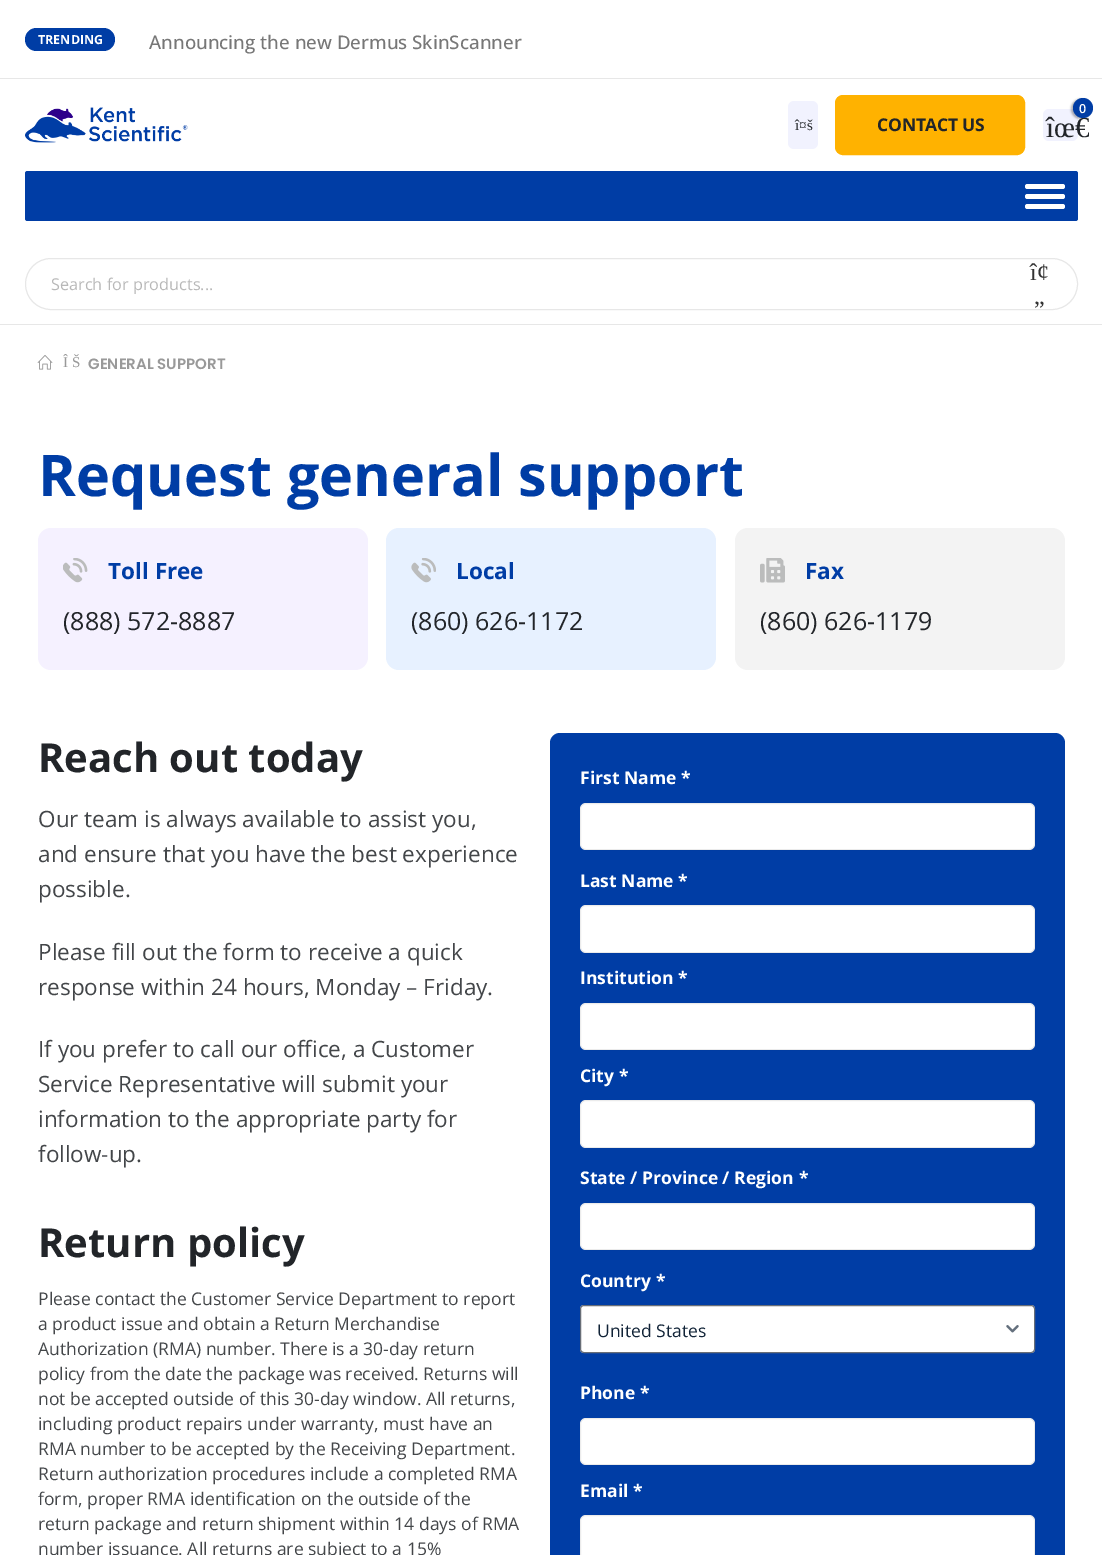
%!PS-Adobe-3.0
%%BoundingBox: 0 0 1102 1555
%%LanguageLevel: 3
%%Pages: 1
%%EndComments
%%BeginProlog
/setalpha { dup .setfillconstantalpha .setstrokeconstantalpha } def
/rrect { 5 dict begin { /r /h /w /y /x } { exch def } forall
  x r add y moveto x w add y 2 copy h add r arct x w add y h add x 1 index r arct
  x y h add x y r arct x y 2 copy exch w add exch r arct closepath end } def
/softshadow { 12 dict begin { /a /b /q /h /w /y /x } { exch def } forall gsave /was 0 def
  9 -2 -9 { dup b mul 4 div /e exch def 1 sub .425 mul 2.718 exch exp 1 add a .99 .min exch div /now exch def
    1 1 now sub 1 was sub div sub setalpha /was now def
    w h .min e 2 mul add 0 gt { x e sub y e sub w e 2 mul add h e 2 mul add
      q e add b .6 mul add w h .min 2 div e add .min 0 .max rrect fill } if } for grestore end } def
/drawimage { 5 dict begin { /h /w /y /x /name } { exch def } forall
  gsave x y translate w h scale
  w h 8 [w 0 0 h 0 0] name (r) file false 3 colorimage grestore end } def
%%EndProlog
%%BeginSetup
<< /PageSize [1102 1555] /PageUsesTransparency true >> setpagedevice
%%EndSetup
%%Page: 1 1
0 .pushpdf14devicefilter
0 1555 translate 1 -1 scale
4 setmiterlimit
1 setgray
0 0 1102 1555 rectfill
0.906 setgray
0 78 1102 1 rectfill
0 0.239 0.647 setrgbcolor
25 28 90 23 11.5 rrect fill
(images/1.raw) 25 107 163 36 drawimage
0.945 0.949 0.996 setrgbcolor
788 101 30 48 6 rrect fill
1 0.698 0 setrgbcolor
835.5 95.5 189 59 7.5 rrect gsave fill grestore
stroke
0.945 0.949 0.996 setrgbcolor
1043 109 35 32 6 rrect fill
0 setgray
1071 99 20 20 10 1 0.3 softshadow
0 0.239 0.647 setrgbcolor
25 171 1053 50 2.5 rrect fill
1 setgray
1025 184 40 5 2.5 rrect fill
1025 194 40 5 2.5 rrect fill
1025 204 40 5 2.5 rrect fill
0.906 setgray
25.5 258.5 1052 51 25.5 rrect stroke
0 324 1102 1 rectfill
(images/2.raw) 37 355 16 15 drawimage
0.961 0.945 1 setrgbcolor
38 528 330 142 13 rrect fill
(images/3.raw) 63 558 25 25 drawimage
0.906 0.945 1 setrgbcolor
386 528 330 142 13 rrect fill
(images/4.raw) 411 558 25 25 drawimage
0.953 setgray
735 528 330 142 13 rrect fill
(images/5.raw) 760 558 25 25 drawimage
0 0.239 0.647 setrgbcolor
550 733 515 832 10 rrect fill
1 setgray
580 803 455 47 6 rrect fill
0.08 setalpha
0 setgray
580.5 803.5 454 46 5.5 rrect stroke
1 setalpha
1 setgray
580 905 455 48 6 rrect fill
0.08 setalpha
0 setgray
580.5 905.5 454 47 5.5 rrect stroke
1 setalpha
1 setgray
580 1003 455 47 6 rrect fill
0.08 setalpha
0 setgray
580.5 1003.5 454 46 5.5 rrect stroke
1 setalpha
1 setgray
580 1100 455 48 6 rrect fill
0.08 setalpha
0 setgray
580.5 1100.5 454 47 5.5 rrect stroke
1 setalpha
1 setgray
580 1203 455 47 6 rrect fill
0.08 setalpha
0 setgray
580.5 1203.5 454 46 5.5 rrect stroke
1 setalpha
1 setgray
580 1305 455 48 4 rrect fill
(images/6.raw) 1006 1325 13 8 drawimage
0.408 0.431 0.467 setrgbcolor
580.5 1305.5 454 47 3.5 rrect stroke
1 setgray
580 1418 455 47 6 rrect fill
0.08 setalpha
0 setgray
580.5 1418.5 454 46 5.5 rrect stroke
1 setalpha
1 setgray
580 1515 455 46 6 rrect fill
0.08 setalpha
0 setgray
580.5 1515.5 454 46 5.5 rrect stroke
/OpenSans-Bold [12.5 0 0 -12.5 0 0] selectfont
1 setalpha
1 setgray
38 44 moveto (TRENDING) show
/OpenSans-Medium [18.75 0 0 -18.75 0 0] selectfont
0.467 setgray
149 49 moveto (Announcing the new Dermus SkinScanner) show
/LiberationSerif-Regular [15 0 0 -15 0 0] selectfont
0.133 0.145 0.161 setrgbcolor
795 130 moveto (î¤š) show
/OpenSans-Bold [17.5 0 0 -17.5 0 0] selectfont
877 131 moveto -0.25 0 (CONTACT US) ashow
/LiberationSerif-Regular [29 0 0 -29 0 0] selectfont
1046 137 moveto (îœ€) show
0 0.239 0.647 setrgbcolor
newpath 1083 108 10 0 360 arc closepath fill
/OpenSans-SemiBold [12.5 0 0 -12.5 0 0] selectfont
1 setgray
1079 113 moveto (0) show
/OpenSans-Regular [16.25 0 0 -16.25 0 0] selectfont
0.722 setgray
51 290 moveto (Search for products...) show
/LiberationSerif-Regular [24 0 0 -24 0 0] selectfont
0.2 setgray
1030 280 moveto (î¢) show
1034 304 moveto („) show
/LiberationSerif-Regular [15 0 0 -15 0 0] selectfont
0.6 setgray
63 367 moveto (Î Š) show
/Poppins-SemiBold [15 0 0 -15 0 0] selectfont
88 369 moveto (GENERAL SUPPORT) show
/OpenSans-Bold [57.5 0 0 -57.5 0 0] selectfont
0 0.239 0.647 setrgbcolor
38 496 moveto (Request general support) show
/OpenSans-Bold [22.5 0 0 -22.5 0 0] selectfont
108 579 moveto (Toll Free) show
/OpenSans-Regular [25 0 0 -25 0 0] selectfont
0.133 0.145 0.161 setrgbcolor
63 630 moveto (\(888\) 572-8887) show
/OpenSans-Bold [22.5 0 0 -22.5 0 0] selectfont
0 0.239 0.647 setrgbcolor
456 579 moveto (Local) show
/OpenSans-Regular [25 0 0 -25 0 0] selectfont
0.133 0.145 0.161 setrgbcolor
411 630 moveto (\(860\) 626-1172) show
/OpenSans-Bold [22.5 0 0 -22.5 0 0] selectfont
0 0.239 0.647 setrgbcolor
805 579 moveto (Fax) show
/OpenSans-Regular [25 0 0 -25 0 0] selectfont
0.133 0.145 0.161 setrgbcolor
760 630 moveto (\(860\) 626-1179) show
/OpenSans-Bold [40 0 0 -40 0 0] selectfont
38 772 moveto (Reach out today) show
/OpenSans-Regular [22.5 0 0 -22.5 0 0] selectfont
0.263 0.275 0.286 setrgbcolor
38 827 moveto (Our team is always available to assist you,) show
38 862 moveto (and ensure that you have the best experience) show
38 897 moveto (possible.) show
38 960 moveto (Please fill out the form to receive a quick) show
38 995 moveto (response within 24 hours, Monday – Friday.) show
38 1057 moveto (If you prefer to call our office, a Customer) show
38 1092 moveto (Service Representative will submit your) show
38 1127 moveto (information to the appropriate party for) show
38 1162 moveto (follow-up.) show
/OpenSans-Bold [40 0 0 -40 0 0] selectfont
0.133 0.145 0.161 setrgbcolor
38 1257 moveto (Return policy) show
/OpenSans-Regular [17.5 0 0 -17.5 0 0] selectfont
0.263 0.275 0.286 setrgbcolor
38 1305 moveto (Please contact the Customer Service Department to report) show
38 1330 moveto (a product issue and obtain a Return Merchandise) show
38 1355 moveto (Authorization \(RMA\) number. There is a 30-day return) show
38 1380 moveto (policy from the date the package was received. Returns will) show
38 1405 moveto (not be accepted outside of this 30-day window. All returns,) show
38 1430 moveto (including product repairs under warranty, must have an) show
38 1455 moveto (RMA number to be accepted by the Receiving Department.) show
38 1480 moveto (Return authorization procedures include a completed RMA) show
38 1505 moveto (form, proper RMA identification on the outside of the) show
38 1530 moveto (return package and return shipment within 14 days of RMA) show
38 1555 moveto (number issuance. All returns are subject to a 15%) show
/OpenSans-Bold [17.5 0 0 -17.5 0 0] selectfont
1 setgray
580 784 moveto (First Name *) show
580 887 moveto (Last Name *) show
580 984 moveto (Institution *) show
580 1082 moveto (City) show
619 1082 moveto (*) show
580 1184 moveto (State / Province / Region) show
799 1184 moveto (*) show
580 1287 moveto (Country) show
656 1287 moveto (*) show
/OpenSans-Regular [17.5 0 0 -17.5 0 0] selectfont
0.067 0.137 0.216 setrgbcolor
597 1337 moveto (United States) show
/OpenSans-Bold [17.5 0 0 -17.5 0 0] selectfont
1 setgray
580 1399 moveto (Phone *) show
580 1497 moveto (Email *) show
.poppdf14devicefilter showpage
%%EOF
